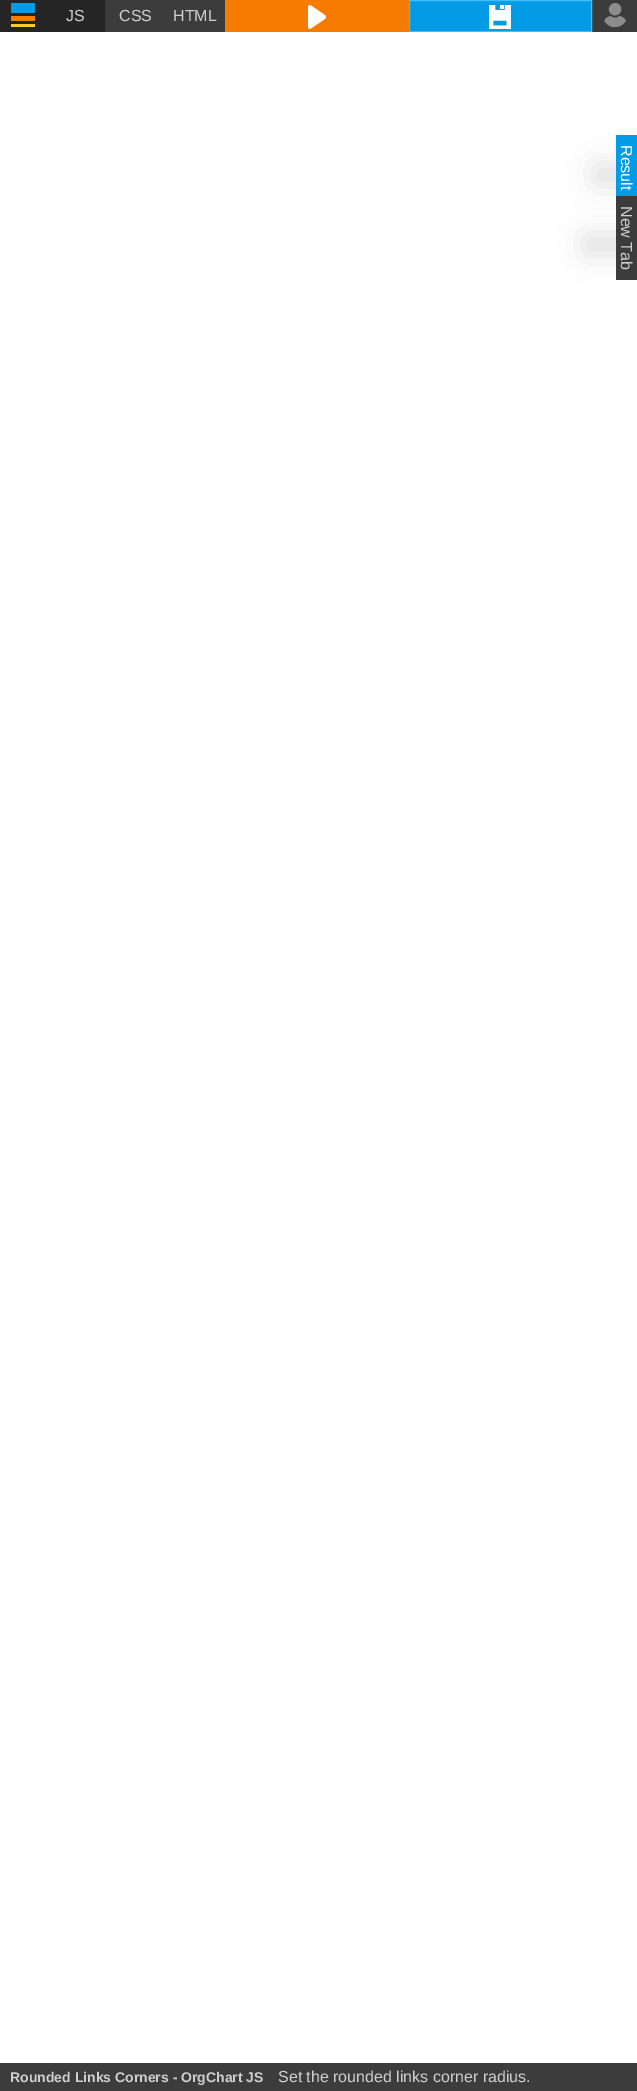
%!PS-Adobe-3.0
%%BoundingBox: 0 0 637 2091
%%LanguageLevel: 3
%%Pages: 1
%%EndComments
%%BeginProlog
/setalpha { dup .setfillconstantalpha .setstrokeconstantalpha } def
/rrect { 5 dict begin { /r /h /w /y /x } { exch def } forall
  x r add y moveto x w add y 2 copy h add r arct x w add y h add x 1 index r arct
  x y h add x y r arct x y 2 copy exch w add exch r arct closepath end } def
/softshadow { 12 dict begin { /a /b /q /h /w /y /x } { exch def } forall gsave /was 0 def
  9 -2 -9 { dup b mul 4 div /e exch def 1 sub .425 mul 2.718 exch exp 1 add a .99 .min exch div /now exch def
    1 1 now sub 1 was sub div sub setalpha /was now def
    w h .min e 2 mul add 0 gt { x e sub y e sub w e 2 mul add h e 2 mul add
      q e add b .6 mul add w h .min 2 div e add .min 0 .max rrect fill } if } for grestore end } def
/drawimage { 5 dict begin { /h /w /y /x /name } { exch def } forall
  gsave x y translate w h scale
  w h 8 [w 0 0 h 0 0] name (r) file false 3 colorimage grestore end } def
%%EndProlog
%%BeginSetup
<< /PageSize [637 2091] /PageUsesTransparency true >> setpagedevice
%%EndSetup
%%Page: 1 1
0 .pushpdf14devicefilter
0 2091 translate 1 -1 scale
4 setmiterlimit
0.235 setgray
0 0 637 2091 rectfill
0.145 0.145 0.149 setrgbcolor
0 0 105 32 rectfill
0.012 0.608 0.898 setrgbcolor
11 3 24 10 rectfill
0.961 0.486 0 setrgbcolor
11 16 24 5 rectfill
1 0.792 0.157 setrgbcolor
11 24 24 3 rectfill
0.961 0.486 0 setrgbcolor
225 0 184 32 rectfill
(images/1.raw) 308 5 18 24 drawimage
0.012 0.608 0.898 setrgbcolor
newpath 409.5 0.5 moveto 591.5 0.5 lineto 591.5 31.5 lineto 409.5 31.5 lineto closepath gsave fill grestore
0.247 0.753 1 setrgbcolor
stroke
(images/2.raw) 489 5 22 24 drawimage
(images/3.raw) 604 3 22 24 drawimage
1 setgray
0 32 637 2031 rectfill
0.392 0.392 0.435 setrgbcolor
594 164 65 21 0 14.5 0.2 softshadow
0.012 0.608 0.898 setrgbcolor
616 135 21 61 rectfill
0.392 0.392 0.435 setrgbcolor
584 234 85 21 0 14.5 0.2 softshadow
0.235 setgray
616 196 21 84 rectfill
/LiberationSans-Regular [16 0 0 -16 0 0] selectfont
0.812 setgray
66 21 moveto (JS) show
119 21 moveto (CSS) show
173 21 moveto (HTML) show
1 setgray
gsave 621 145 translate 90 rotate 0 0 moveto (Result) show grestore
0.812 setgray
gsave 621 206 translate 90 rotate 0 0 moveto (New Tab) show grestore
/LiberationSans-Bold [14 0 0 -14 0 0] selectfont
10 2082 moveto (Rounded Links Corners - OrgChart JS) show
/LiberationSans-Regular [16 0 0 -16 0 0] selectfont
278 2082 moveto (Set the rounded links corner radius.) show
.poppdf14devicefilter showpage
%%EOF
